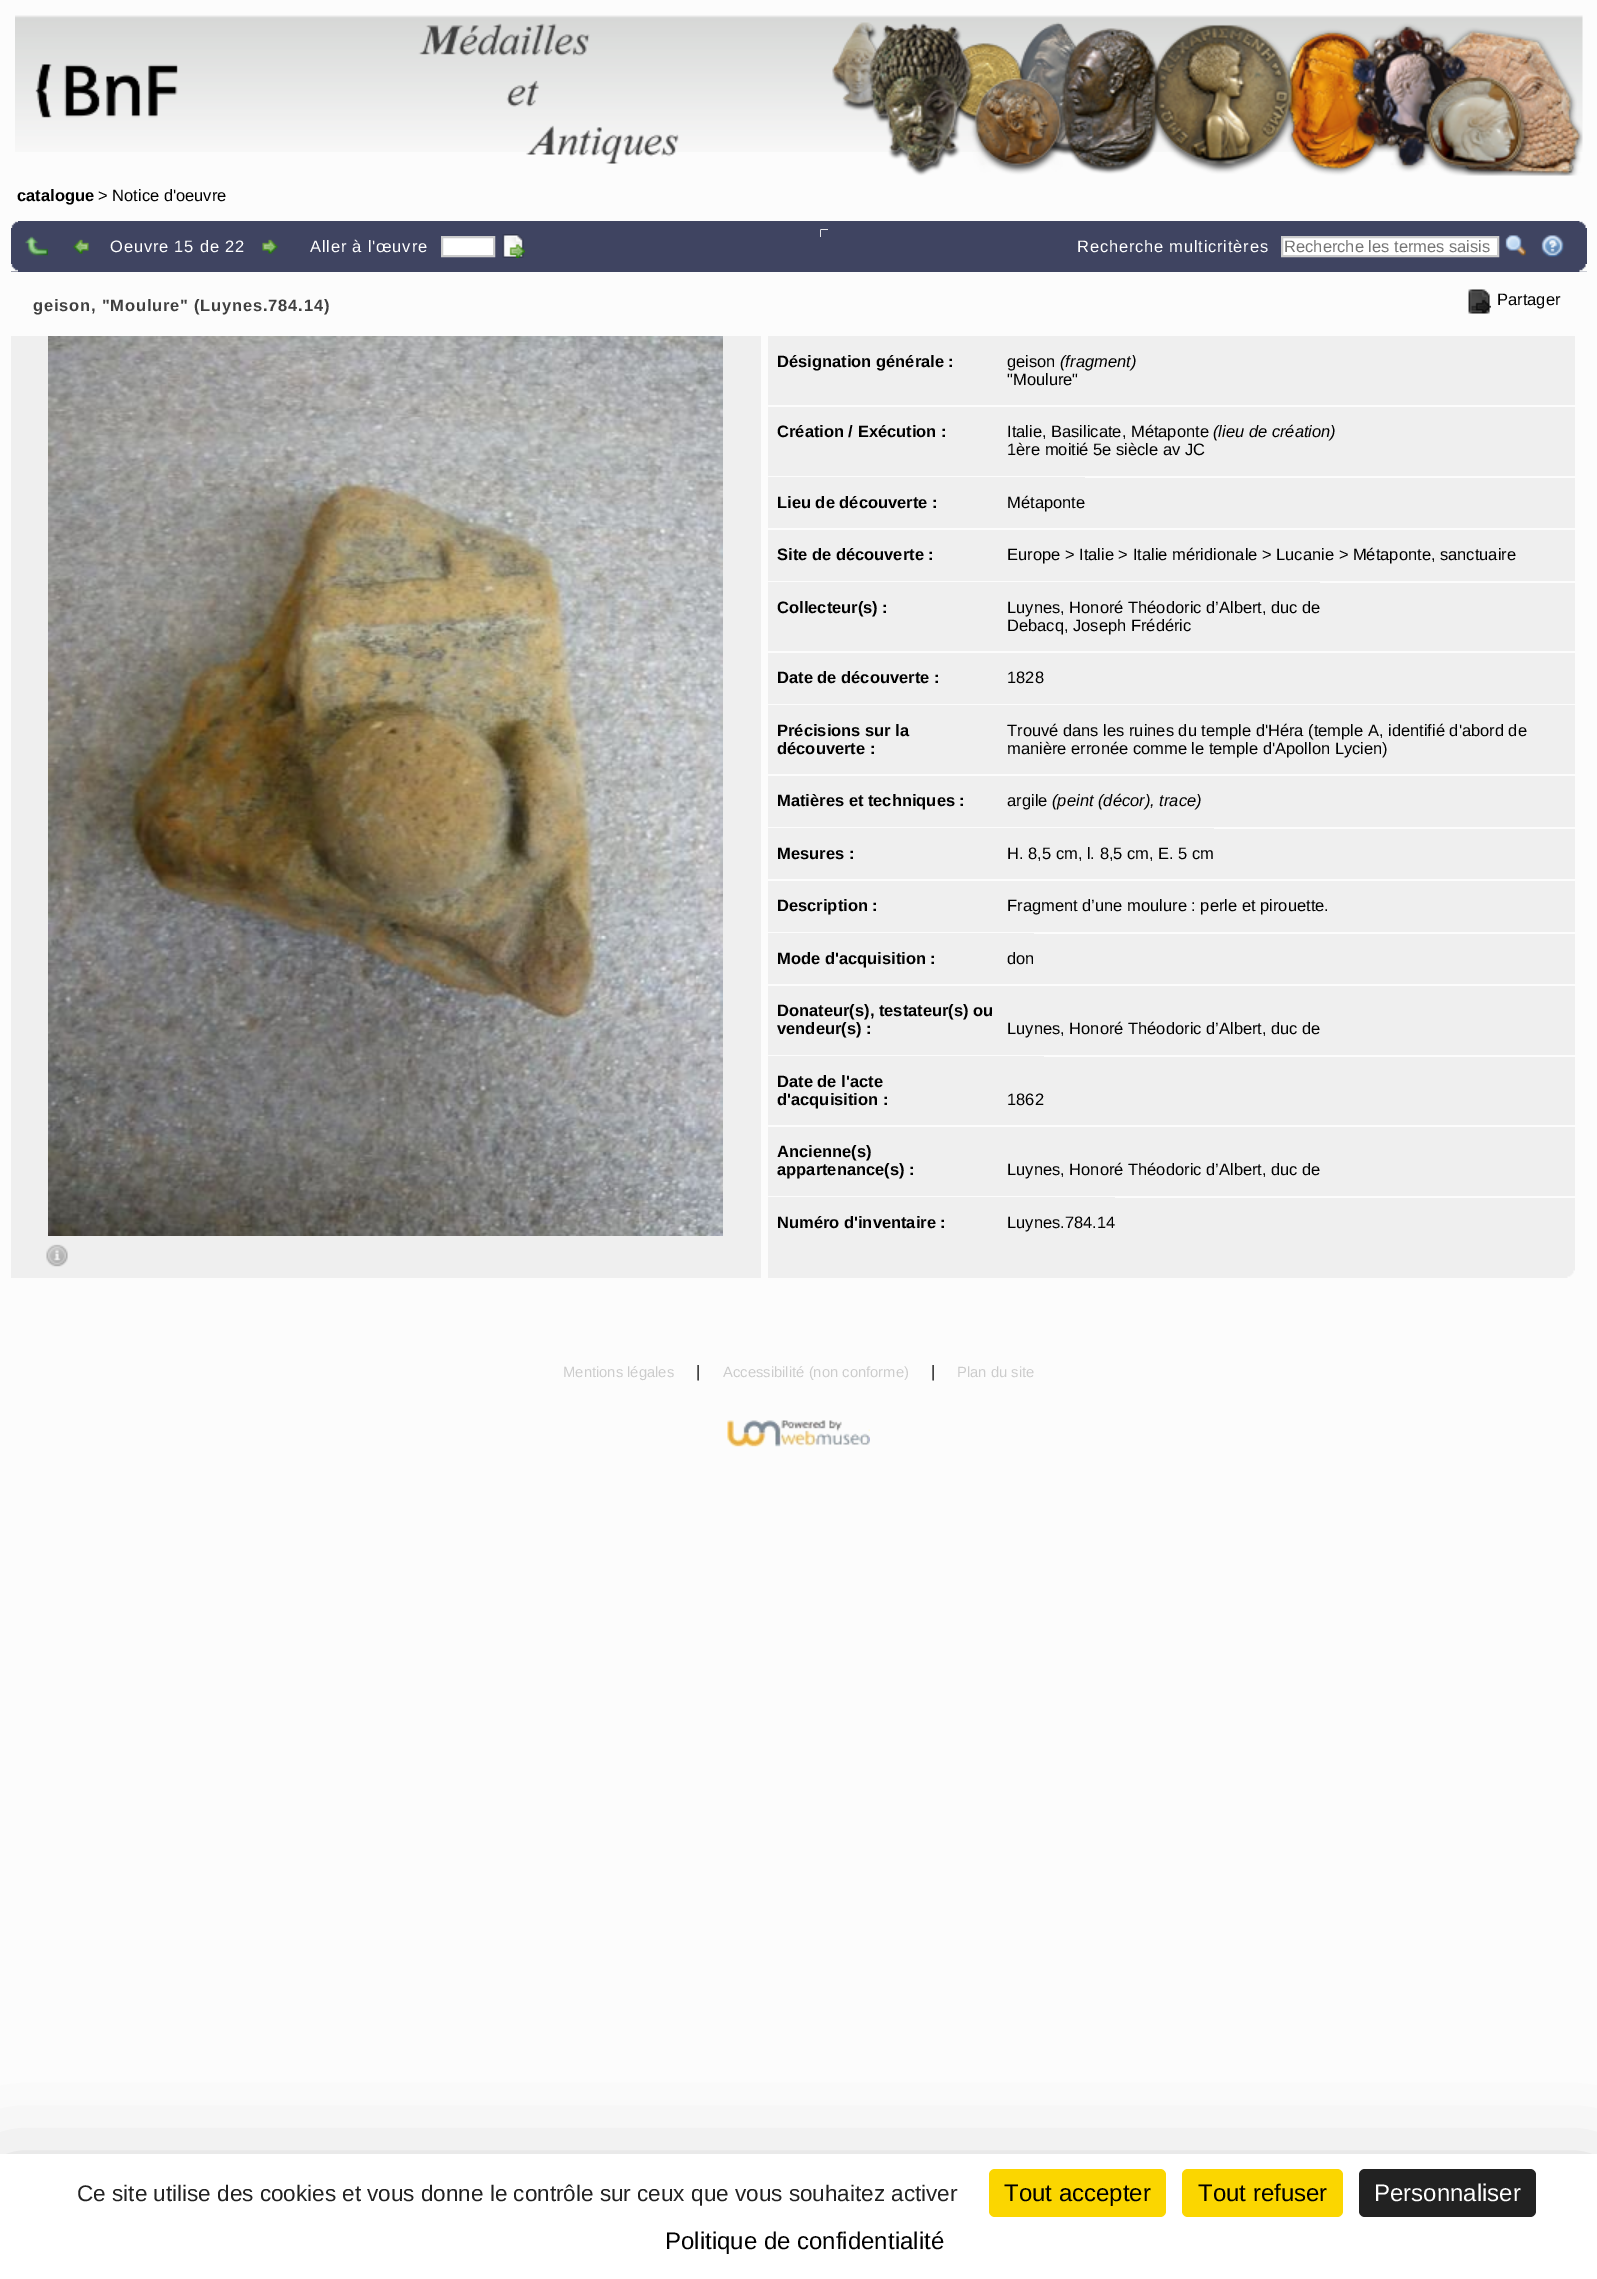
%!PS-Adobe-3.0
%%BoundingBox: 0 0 1597 2279
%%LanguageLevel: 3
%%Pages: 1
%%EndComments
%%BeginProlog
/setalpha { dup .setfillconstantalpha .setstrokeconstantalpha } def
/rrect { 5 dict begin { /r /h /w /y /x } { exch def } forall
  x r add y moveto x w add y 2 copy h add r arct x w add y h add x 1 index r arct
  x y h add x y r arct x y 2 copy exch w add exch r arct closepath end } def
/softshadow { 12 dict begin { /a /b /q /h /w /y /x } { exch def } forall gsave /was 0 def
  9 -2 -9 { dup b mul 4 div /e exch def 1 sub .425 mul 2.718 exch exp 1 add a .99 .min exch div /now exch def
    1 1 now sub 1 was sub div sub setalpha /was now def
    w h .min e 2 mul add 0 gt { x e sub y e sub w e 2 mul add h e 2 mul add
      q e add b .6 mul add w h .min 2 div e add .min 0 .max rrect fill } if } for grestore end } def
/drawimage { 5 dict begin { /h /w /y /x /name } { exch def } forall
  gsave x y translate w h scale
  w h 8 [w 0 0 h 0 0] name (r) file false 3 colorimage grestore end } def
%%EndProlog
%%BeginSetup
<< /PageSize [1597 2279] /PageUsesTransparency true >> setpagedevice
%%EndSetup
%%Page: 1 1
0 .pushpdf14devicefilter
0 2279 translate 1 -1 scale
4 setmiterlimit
0.988 setgray
0 0 1597 2279 rectfill
(images/1.raw) 15 15 1568 137 drawimage
(images/2.raw) 35 23 644 141 drawimage
(images/3.raw) 832 22 751 154 drawimage
0.247 0.267 0.38 setrgbcolor
11 221 1576 51 rectfill
(images/4.raw) 11 221 7 7 drawimage
(images/5.raw) 1579 221 8 7 drawimage
(images/6.raw) 11 264 7 8 drawimage
(images/7.raw) 25 236 23 20 drawimage
(images/8.raw) 73 239 16 15 drawimage
(images/9.raw) 262 239 16 15 drawimage
1 setgray
newpath 442 237 moveto 494 237 lineto 494 256 lineto 442 256 lineto closepath gsave fill grestore
0.8 setgray
2 setlinewidth
stroke
(images/10.raw) 502 234 23 24 drawimage
(images/11.raw) 1579 264 8 8 drawimage
(images/12.raw) 820 229 8 8 drawimage
(images/13.raw) 820 229 8 8 drawimage
(images/14.raw) 820 229 8 8 drawimage
0.247 0.267 0.38 setrgbcolor
821 230 7 7 rectfill
1 setgray
newpath 1282 237 moveto 1498 237 lineto 1498 256 lineto 1282 256 lineto closepath gsave fill grestore
0.8 setgray
stroke
(images/15.raw) 1505 235 21 22 drawimage
(images/16.raw) 1541 235 23 22 drawimage
(images/17.raw) 1579 271 8 1 drawimage
(images/18.raw) 1468 289 23 25 drawimage
0.937 setgray
11 336 750 942 rectfill
(images/19.raw) 46 1244 22 23 drawimage
(images/20.raw) 48 336 675 900 drawimage
768 336 807 942 rectfill
(images/21.raw) 1567 1270 8 8 drawimage
0.988 setgray
768 405 807 2 rectfill
768 476 807 2 rectfill
0.937 setgray
768 477 317 1 rectfill
0.988 setgray
768 528 807 2 rectfill
768 581 807 2 rectfill
0.937 setgray
768 582 552 1 rectfill
0.988 setgray
768 651 807 2 rectfill
768 704 807 1 rectfill
768 774 807 2 rectfill
768 827 807 2 rectfill
0.937 setgray
768 828 446 1 rectfill
0.988 setgray
768 879 807 2 rectfill
768 932 807 2 rectfill
0.937 setgray
768 933 266 1 rectfill
0.988 setgray
768 984 807 2 rectfill
768 1055 807 2 rectfill
0.937 setgray
768 1056 276 1 rectfill
0.988 setgray
768 1125 807 2 rectfill
768 1196 807 2 rectfill
0.937 setgray
768 1197 347 1 rectfill
(images/22.raw) 727 1420 143 27 drawimage
0 setgray
0 2184 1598 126 0 45 0.25 softshadow
1 setgray
0 2154 1597 125 rectfill
0.984 0.839 0 setrgbcolor
989 2169 177 48 6 rrect fill
1182 2169 161 48 6 rrect fill
0.133 setgray
1359 2169 177 48 6 rrect fill
/LiberationSans-Bold [16.5 0 0 -16.5 0 0] selectfont
0 setgray
17 201 moveto (catalogue) show
/LiberationSans-Regular [16.5 0 0 -16.5 0 0] selectfont
98 201 moveto (> Notice d'oeuvre) show
1 setgray
110 252 moveto 0.8 0 (Oeuvre 15 de 22) ashow
310 252 moveto 0.8 0 (Aller à l'œuvre) ashow
1077 252 moveto 0.8 0 (Recherche multicritères) ashow
0.459 setgray
1284 252 moveto (Recherche les termes saisis) show
/LiberationSans-Bold [16.5 0 0 -16.5 0 0] selectfont
0.247 setgray
33 311 moveto 0.8 0 (geison, "Moulure" \(Luynes.784.14\)) ashow
/LiberationSans-Regular [16.5 0 0 -16.5 0 0] selectfont
0 setgray
1497 305 moveto (Partager) show
/LiberationSans-Bold [16.5 0 0 -16.5 0 0] selectfont
777 367 moveto (Désignation générale :) show
/LiberationSans-Regular [16.5 0 0 -16.5 0 0] selectfont
1007 367 moveto (geison) show
/LiberationSans-Italic [16.5 0 0 -16.5 0 0] selectfont
1060 367 moveto (\(fragment\)) show
/LiberationSans-Regular [16.5 0 0 -16.5 0 0] selectfont
1007 385 moveto ("Moulure") show
/LiberationSans-Bold [16.5 0 0 -16.5 0 0] selectfont
777 437 moveto (Création / Exécution :) show
/LiberationSans-Regular [16.5 0 0 -16.5 0 0] selectfont
1007 437 moveto (Italie, Basilicate, Métaponte) show
/LiberationSans-Italic [16.5 0 0 -16.5 0 0] selectfont
1213 437 moveto (\(lieu de création\)) show
/LiberationSans-Regular [16.5 0 0 -16.5 0 0] selectfont
1007 455 moveto (1ère moitié 5e siècle av JC) show
/LiberationSans-Bold [16.5 0 0 -16.5 0 0] selectfont
777 508 moveto (Lieu de découverte :) show
/LiberationSans-Regular [16.5 0 0 -16.5 0 0] selectfont
1007 508 moveto (Métaponte) show
/LiberationSans-Bold [16.5 0 0 -16.5 0 0] selectfont
777 560 moveto (Site de découverte :) show
/LiberationSans-Regular [16.5 0 0 -16.5 0 0] selectfont
1007 560 moveto (Europe > Italie > Italie méridionale > Lucanie > Métaponte, sanctuaire) show
/LiberationSans-Bold [16.5 0 0 -16.5 0 0] selectfont
777 613 moveto (Collecteur\(s\) :) show
/LiberationSans-Regular [16.5 0 0 -16.5 0 0] selectfont
1007 613 moveto (Luynes, Honoré Théodoric d’Albert, duc de) show
1007 631 moveto (Debacq, Joseph Frédéric) show
/LiberationSans-Bold [16.5 0 0 -16.5 0 0] selectfont
777 683 moveto (Date de découverte :) show
/LiberationSans-Regular [16.5 0 0 -16.5 0 0] selectfont
1007 683 moveto (1828) show
/LiberationSans-Bold [16.5 0 0 -16.5 0 0] selectfont
777 736 moveto (Précisions sur la) show
777 754 moveto (découverte :) show
/LiberationSans-Regular [16.5 0 0 -16.5 0 0] selectfont
1007 736 moveto (Trouvé dans les ruines du temple d'Héra \(temple A, identifié d'abord de) show
1007 754 moveto (manière erronée comme le temple d'Apollon Lycien\)) show
/LiberationSans-Bold [16.5 0 0 -16.5 0 0] selectfont
777 806 moveto (Matières et techniques :) show
/LiberationSans-Regular [16.5 0 0 -16.5 0 0] selectfont
1007 806 moveto (argile) show
/LiberationSans-Italic [16.5 0 0 -16.5 0 0] selectfont
1052 806 moveto (\(peint \(décor\), trace\)) show
/LiberationSans-Bold [16.5 0 0 -16.5 0 0] selectfont
777 859 moveto (Mesures :) show
/LiberationSans-Regular [16.5 0 0 -16.5 0 0] selectfont
1007 859 moveto (H. 8,5 cm, l. 8,5 cm, E. 5 cm) show
/LiberationSans-Bold [16.5 0 0 -16.5 0 0] selectfont
777 911 moveto (Description :) show
/LiberationSans-Regular [16.5 0 0 -16.5 0 0] selectfont
1007 911 moveto (Fragment d’une moulure : perle et pirouette.) show
/LiberationSans-Bold [16.5 0 0 -16.5 0 0] selectfont
777 964 moveto (Mode d'acquisition :) show
/LiberationSans-Regular [16.5 0 0 -16.5 0 0] selectfont
1007 964 moveto (don) show
/LiberationSans-Bold [16.5 0 0 -16.5 0 0] selectfont
777 1016 moveto (Donateur\(s\), testateur\(s\) ou) show
777 1034 moveto (vendeur\(s\) :) show
/LiberationSans-Regular [16.5 0 0 -16.5 0 0] selectfont
1007 1034 moveto (Luynes, Honoré Théodoric d’Albert, duc de) show
/LiberationSans-Bold [16.5 0 0 -16.5 0 0] selectfont
777 1087 moveto (Date de l'acte) show
777 1105 moveto (d'acquisition :) show
/LiberationSans-Regular [16.5 0 0 -16.5 0 0] selectfont
1007 1105 moveto (1862) show
/LiberationSans-Bold [16.5 0 0 -16.5 0 0] selectfont
777 1157 moveto (Ancienne\(s\)) show
777 1175 moveto (appartenance\(s\) :) show
/LiberationSans-Regular [16.5 0 0 -16.5 0 0] selectfont
1007 1175 moveto (Luynes, Honoré Théodoric d’Albert, duc de) show
/LiberationSans-Bold [16.5 0 0 -16.5 0 0] selectfont
777 1228 moveto (Numéro d'inventaire :) show
/LiberationSans-Regular [16.5 0 0 -16.5 0 0] selectfont
1007 1228 moveto (Luynes.784.14) show
/LiberationSans-Regular [14.8 0 0 -14.8 0 0] selectfont
0.8 setgray
563 1377 moveto (Mentions légales) show
/LiberationSans-Regular [16.5 0 0 -16.5 0 0] selectfont
0 setgray
696 1377 moveto (|) show
/LiberationSans-Regular [14.8 0 0 -14.8 0 0] selectfont
0.8 setgray
723 1377 moveto (Accessibilité \(non conforme\)) show
/LiberationSans-Regular [16.5 0 0 -16.5 0 0] selectfont
0 setgray
931 1377 moveto (|) show
/LiberationSans-Regular [14.8 0 0 -14.8 0 0] selectfont
0.8 setgray
957 1377 moveto (Plan du site) show
/LiberationSans-Regular [22.5 0 0 -22.5 0 0] selectfont
0.133 setgray
77 2201 moveto (Ce site utilise des cookies et vous donne le contrôle sur ceux que vous souhaitez activer) show
/LiberationSans-Regular [24 0 0 -24 0 0] selectfont
0 setgray
1004 2201 moveto (Tout accepter) show
1198 2201 moveto (Tout refuser) show
1 setgray
1374 2201 moveto (Personnaliser) show
0 setgray
665 2249 moveto (Politique de confidentialité) show
.poppdf14devicefilter showpage
%%EOF
